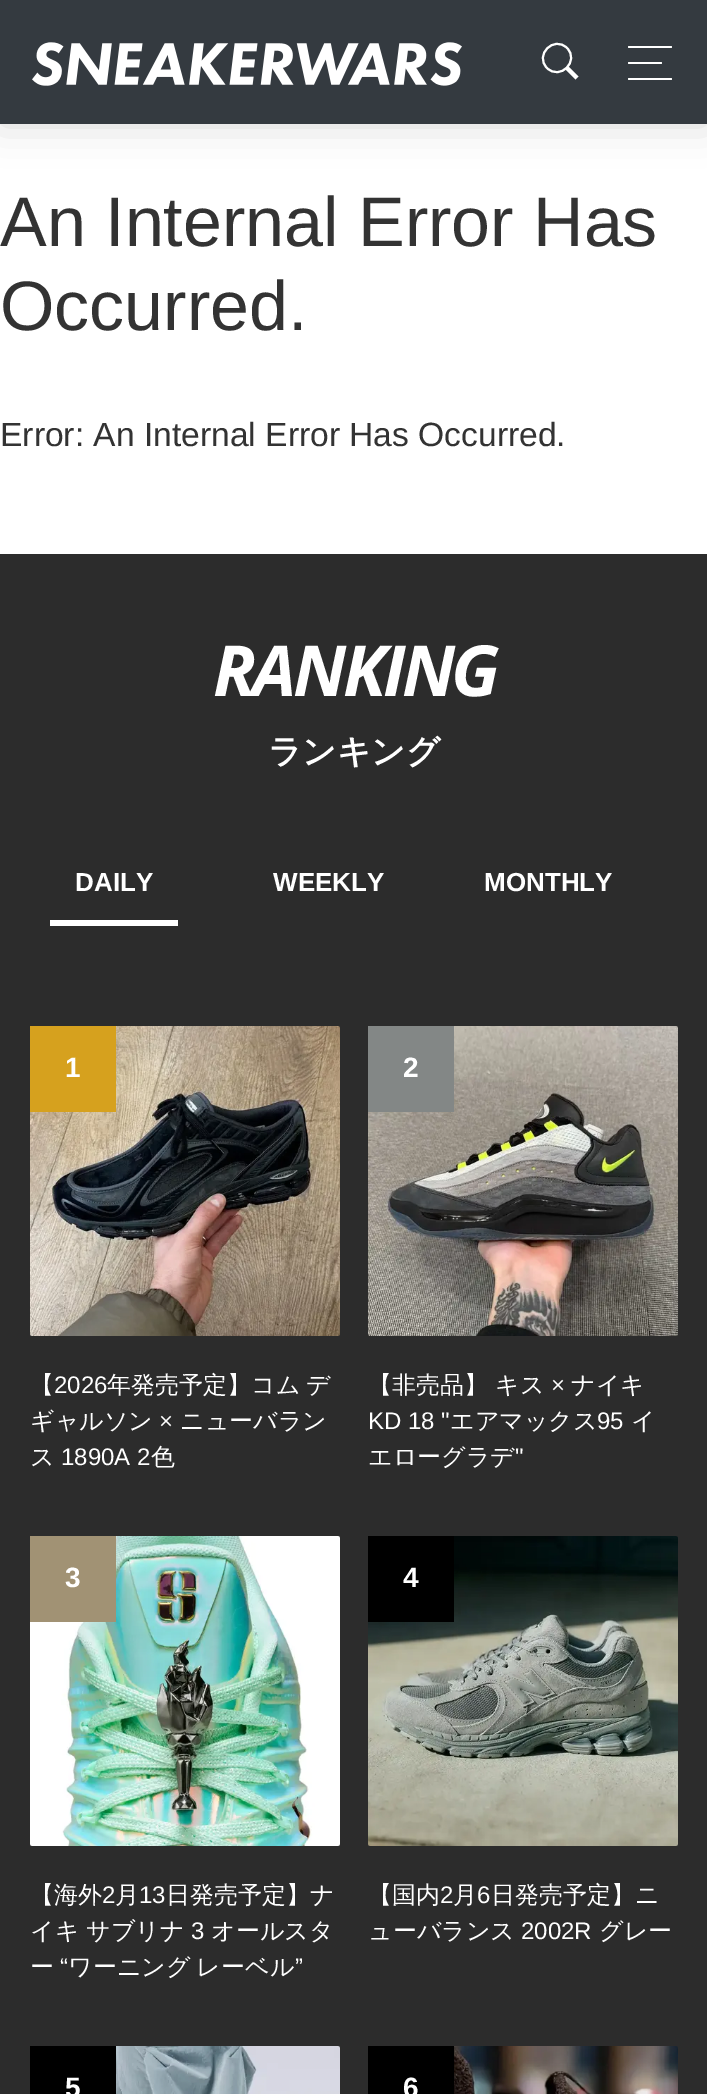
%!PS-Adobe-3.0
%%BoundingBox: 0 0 707 2094
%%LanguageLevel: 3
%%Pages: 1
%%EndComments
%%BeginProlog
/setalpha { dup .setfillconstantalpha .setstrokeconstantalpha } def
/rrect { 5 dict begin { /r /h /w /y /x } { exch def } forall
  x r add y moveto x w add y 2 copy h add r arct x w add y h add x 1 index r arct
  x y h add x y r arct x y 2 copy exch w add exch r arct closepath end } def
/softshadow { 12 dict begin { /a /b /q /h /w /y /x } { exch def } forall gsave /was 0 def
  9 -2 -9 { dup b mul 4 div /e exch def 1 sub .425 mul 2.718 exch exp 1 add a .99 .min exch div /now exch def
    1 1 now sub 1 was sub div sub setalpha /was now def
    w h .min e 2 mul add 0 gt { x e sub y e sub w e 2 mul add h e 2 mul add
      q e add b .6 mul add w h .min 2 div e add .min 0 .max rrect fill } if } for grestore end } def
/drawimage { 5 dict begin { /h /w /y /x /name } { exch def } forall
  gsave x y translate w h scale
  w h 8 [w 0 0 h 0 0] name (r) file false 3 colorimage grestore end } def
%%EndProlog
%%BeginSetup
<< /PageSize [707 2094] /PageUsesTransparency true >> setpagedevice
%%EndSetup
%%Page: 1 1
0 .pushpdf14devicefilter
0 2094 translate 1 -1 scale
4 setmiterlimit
1 setgray
0 0 707 2094 rectfill
0 setgray
0 0 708 124 0 20 0.15 softshadow
0.204 0.227 0.251 setrgbcolor
0 0 707 124 rectfill
(images/1.raw) 32 42 430 44 drawimage
1 setgray
2 setlinewidth
newpath 567 48 moveto 580 61 560 81 547 68 curveto 534 55 554 35 567 48 curveto closepath stroke
newpath 565.5 69.5 moveto 568.5 66.5 lineto 578.5 76.5 lineto 575.5 79.5 lineto closepath fill
628 46 44 2 1 rrect fill
628 62 34 2 1 rrect fill
628 78 44 2 1 rrect fill
0.173 setgray
0 554 707 1540 rectfill
1 setgray
50 920 128 6 rectfill
(images/2.raw) 30 1026 310 310 drawimage
0.839 0.631 0.118 setrgbcolor
30 1026 86 86 rectfill
(images/3.raw) 368 1026 310 310 drawimage
0.514 0.529 0.525 setrgbcolor
368 1026 86 86 rectfill
(images/4.raw) 30 1536 310 310 drawimage
0.631 0.573 0.455 setrgbcolor
30 1536 86 86 rectfill
(images/5.raw) 368 1536 310 310 drawimage
0 setgray
368 1536 86 86 rectfill
30 2046 86 48 rectfill
(images/6.raw) 116 2046 224 48 drawimage
368 2046 86 48 rectfill
(images/7.raw) 454 2046 224 48 drawimage
/LiberationSans-Regular [70 0 0 -70 0 0] selectfont
0.2 setgray
0 246 moveto (An Internal Error Has) show
0 330 moveto (Occurred.) show
/LiberationSans-Regular [33.6 0 0 -33.6 0 0] selectfont
0 446 moveto (Error: An Internal Error Has Occurred.) show
/OpenSans-BoldItalic [70.5 0 0 -70.5 0 0] selectfont
1 setgray
213 696 moveto -3.5 0 (RANKING) ashow
/WenQuanYiZenHei-Bold [33.6 0 0 -33.6 0 0] selectfont
268 763 moveto (ランキング) show
/LiberationSans-Bold [26 0 0 -26 0 0] selectfont
75 891 moveto (DAILY) show
273 891 moveto (WEEKLY) show
484 891 moveto (MONTHLY) show
/LiberationSans-Bold [28 0 0 -28 0 0] selectfont
65 1077 moveto (1) show
/WenQuanYiZenHei-Medium [24 0 0 -24 0 0] selectfont
30 1393 moveto (【) show
/LiberationSans-Regular [24 0 0 -24 0 0] selectfont
54 1393 moveto (2026) show
/WenQuanYiZenHei-Medium [24 0 0 -24 0 0] selectfont
107 1393 moveto -1 0 32 (年発売予定】コム デ) widthshow
30 1429 moveto (ギャルソン) show
/LiberationSans-Regular [24 0 0 -24 0 0] selectfont
159 1429 moveto (×) show
/WenQuanYiZenHei-Medium [24 0 0 -24 0 0] selectfont
180 1429 moveto (ニューバラン) show
30 1465 moveto (ス) show
/LiberationSans-Regular [24 0 0 -24 0 0] selectfont
61 1465 moveto (1890A 2) show
/WenQuanYiZenHei-Medium [24 0 0 -24 0 0] selectfont
151 1465 moveto (色) show
/LiberationSans-Bold [28 0 0 -28 0 0] selectfont
403 1077 moveto (2) show
/WenQuanYiZenHei-Medium [24 0 0 -24 0 0] selectfont
368 1393 moveto (【非売品】 キス) show
/LiberationSans-Regular [24 0 0 -24 0 0] selectfont
551 1393 moveto (×) show
/WenQuanYiZenHei-Medium [24 0 0 -24 0 0] selectfont
571 1393 moveto (ナイキ) show
/LiberationSans-Regular [24 0 0 -24 0 0] selectfont
368 1429 moveto (KD 18 ") show
/WenQuanYiZenHei-Medium [24 0 0 -24 0 0] selectfont
450 1429 moveto (エアマックス) show
/LiberationSans-Regular [24 0 0 -24 0 0] selectfont
597 1429 moveto (95) show
/WenQuanYiZenHei-Medium [24 0 0 -24 0 0] selectfont
631 1429 moveto (イ) show
368 1465 moveto (エローグラデ) show
/LiberationSans-Regular [24 0 0 -24 0 0] selectfont
515 1465 moveto (") show
/LiberationSans-Bold [28 0 0 -28 0 0] selectfont
65 1587 moveto (3) show
/WenQuanYiZenHei-Medium [24 0 0 -24 0 0] selectfont
30 1903 moveto (【海外) show
/LiberationSans-Regular [24 0 0 -24 0 0] selectfont
102 1903 moveto (2) show
/WenQuanYiZenHei-Medium [24 0 0 -24 0 0] selectfont
115 1903 moveto (月) show
/LiberationSans-Regular [24 0 0 -24 0 0] selectfont
139 1903 moveto (13) show
/WenQuanYiZenHei-Medium [24 0 0 -24 0 0] selectfont
166 1903 moveto (日発売予定】ナ) show
30 1939 moveto (イキ サブリナ) show
/LiberationSans-Regular [24 0 0 -24 0 0] selectfont
191 1939 moveto (3) show
/WenQuanYiZenHei-Medium [24 0 0 -24 0 0] selectfont
211 1939 moveto (オールスタ) show
/LiberationSans-Regular [24 0 0 -24 0 0] selectfont
60 1975 moveto (“) show
/WenQuanYiZenHei-Medium [24 0 0 -24 0 0] selectfont
68 1975 moveto -1 0 32 (ワーニング レーベル) widthshow
/LiberationSans-Regular [24 0 0 -24 0 0] selectfont
295 1975 moveto (”) show
/WenQuanYiZenHei-Medium [24 0 0 -24 0 0] selectfont
30 1975 moveto (ー) show
/LiberationSans-Bold [28 0 0 -28 0 0] selectfont
403 1587 moveto (4) show
/WenQuanYiZenHei-Medium [24 0 0 -24 0 0] selectfont
368 1903 moveto (【国内) show
/LiberationSans-Regular [24 0 0 -24 0 0] selectfont
440 1903 moveto (2) show
/WenQuanYiZenHei-Medium [24 0 0 -24 0 0] selectfont
453 1903 moveto (月) show
/LiberationSans-Regular [24 0 0 -24 0 0] selectfont
477 1903 moveto (6) show
/WenQuanYiZenHei-Medium [24 0 0 -24 0 0] selectfont
491 1903 moveto (日発売予定】ニ) show
368 1939 moveto (ューバランス) show
/LiberationSans-Regular [24 0 0 -24 0 0] selectfont
521 1939 moveto (2002R) show
/WenQuanYiZenHei-Medium [24 0 0 -24 0 0] selectfont
599 1939 moveto (グレー) show
/LiberationSans-Bold [28 0 0 -28 0 0] selectfont
65 2097 moveto (5) show
403 2097 moveto (6) show
.poppdf14devicefilter showpage
%%EOF
